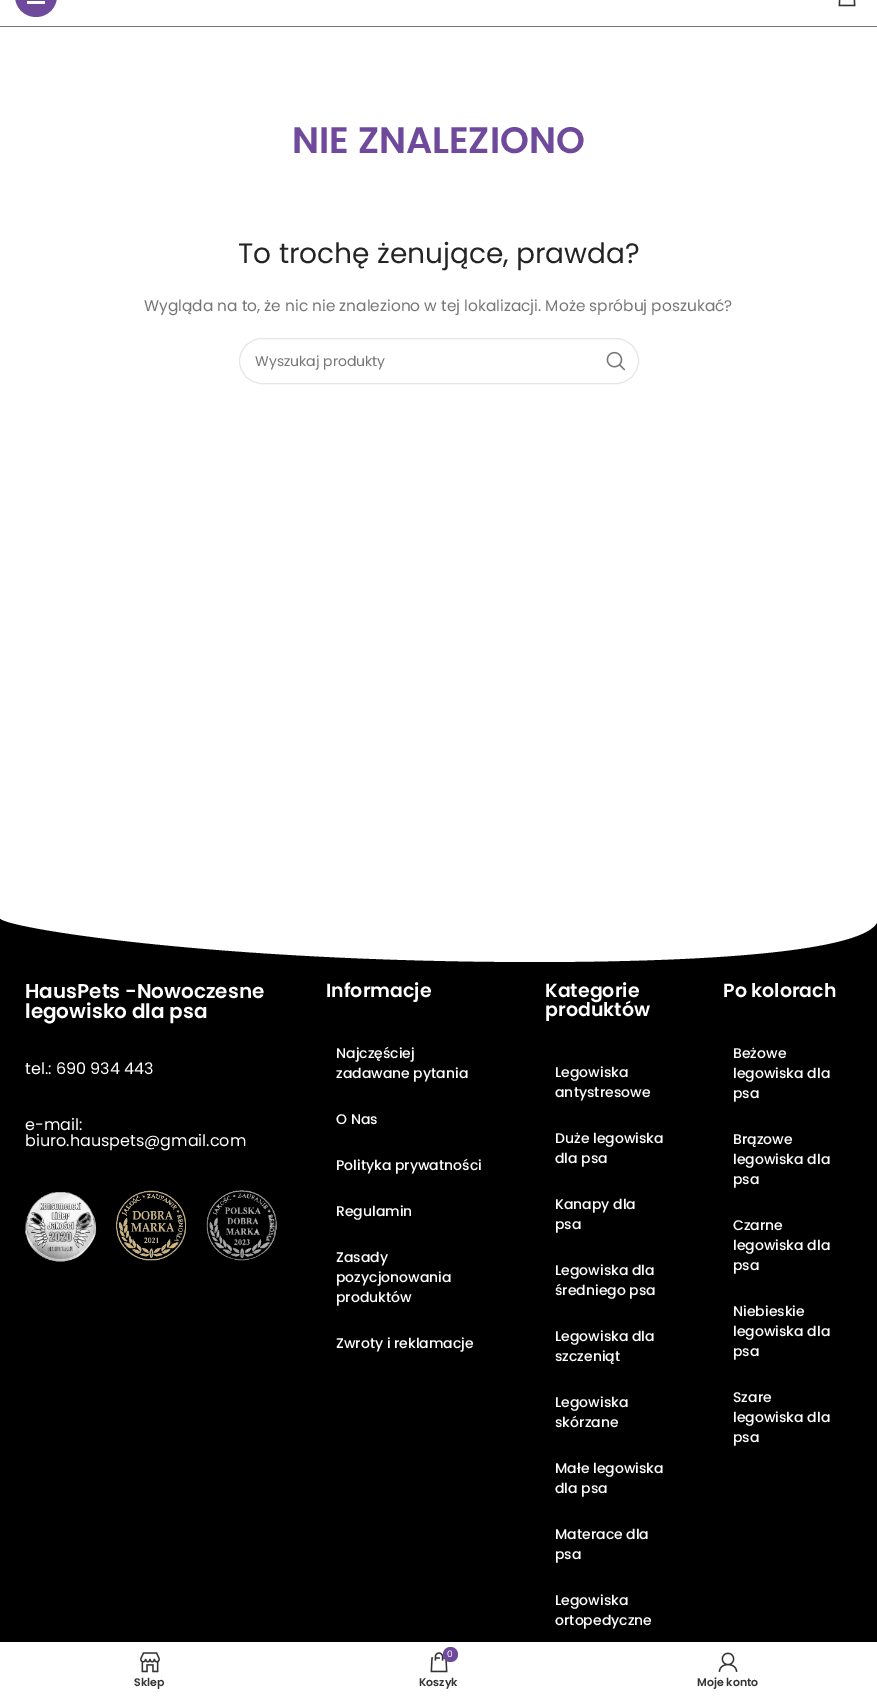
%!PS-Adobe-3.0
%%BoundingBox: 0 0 877 1697
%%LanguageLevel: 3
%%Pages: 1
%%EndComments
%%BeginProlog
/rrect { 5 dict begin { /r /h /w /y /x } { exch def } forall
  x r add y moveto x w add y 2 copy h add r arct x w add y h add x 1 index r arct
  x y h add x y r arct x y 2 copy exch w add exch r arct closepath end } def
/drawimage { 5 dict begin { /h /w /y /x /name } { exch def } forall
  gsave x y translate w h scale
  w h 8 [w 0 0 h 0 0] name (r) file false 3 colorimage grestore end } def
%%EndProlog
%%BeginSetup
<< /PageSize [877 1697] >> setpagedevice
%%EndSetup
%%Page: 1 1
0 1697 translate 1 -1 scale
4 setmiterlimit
1 setgray
0 0 877 1697 rectfill
0.463 setgray
0 26 877 1 rectfill
0.435 0.286 0.612 setrgbcolor
15 -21 42 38 21 rrect fill
1 setgray
27 1 18 3 rectfill
(images/1.raw) 838 0 18 7 drawimage
0.902 setgray
239.5 338.5 399 45 22.5 rrect stroke
(images/2.raw) 606 351 20 20 drawimage
0 setgray
0 918 877 724 rectfill
1 setgray
newpath 0 915 moveto 0 918 lineto 0 927 211 962 540 962 curveto 869 961 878 927 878 918 curveto 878 915 lineto closepath fill
(images/3.raw) 24 1190 253 72 drawimage
(images/4.raw) 140 1652 20 21 drawimage
(images/5.raw) 430 1652 18 21 drawimage
0.435 0.286 0.612 setrgbcolor
newpath 450.5 1654.5 7.5 0 360 arc closepath fill
(images/6.raw) 718 1652 20 20 drawimage
/Poppins-SemiBold [36.75 0 0 -36.75 0 0] selectfont
292 153 moveto (NIE ZNALEZIONO) show
/Poppins-Regular [28 0 0 -28 0 0] selectfont
0.141 setgray
238 263 moveto (To trochę żenujące, prawda?) show
/Poppins-Regular [15.4 0 0 -15.4 0 0] selectfont
0.463 setgray
144 311 moveto (Wygląda na to, że nic nie znaleziono w tej lokalizacji. Może spróbuj poszukać?) show
/Poppins-Regular [14 0 0 -14 0 0] selectfont
255 366 moveto (Wyszukaj produkty) show
/Poppins-SemiBold [20 0 0 -20 0 0] selectfont
1 setgray
25 998 moveto (HausPets -Nowoczesne) show
25 1018 moveto (legowisko dla psa) show
/Poppins-Regular [16 0 0 -16 0 0] selectfont
25 1074 moveto (tel.: 690 934 443) show
25 1130 moveto (e-mail:) show
25 1146 moveto (biuro.hauspets@gmail.com) show
/Poppins-SemiBold [19 0 0 -19 0 0] selectfont
326 997 moveto (Informacje) show
/Poppins-Medium [14 0 0 -14 0 0] selectfont
336 1058 moveto (Najczęściej) show
336 1078 moveto (zadawane pytania) show
336 1124 moveto (O Nas) show
336 1170 moveto (Polityka prywatności) show
336 1216 moveto (Regulamin) show
336 1262 moveto (Zasady) show
336 1282 moveto (pozycjonowania) show
336 1302 moveto (produktów) show
336 1348 moveto (Zwroty i reklamacje) show
/Poppins-SemiBold [19 0 0 -19 0 0] selectfont
545 997 moveto (Kategorie) show
545 1016 moveto (produktów) show
/Poppins-Medium [14 0 0 -14 0 0] selectfont
555 1077 moveto (Legowiska) show
555 1097 moveto (antystresowe) show
555 1143 moveto (Duże legowiska) show
555 1163 moveto (dla psa) show
555 1209 moveto (Kanapy dla) show
555 1229 moveto (psa) show
555 1275 moveto (Legowiska dla) show
555 1295 moveto (średniego psa) show
555 1341 moveto (Legowiska dla) show
555 1361 moveto (szczeniąt) show
555 1407 moveto (Legowiska) show
555 1427 moveto (skórzane) show
555 1473 moveto (Małe legowiska) show
555 1493 moveto (dla psa) show
555 1539 moveto (Materace dla) show
555 1559 moveto (psa) show
555 1605 moveto (Legowiska) show
555 1625 moveto (ortopedyczne) show
/Poppins-SemiBold [19 0 0 -19 0 0] selectfont
723 997 moveto (Po kolorach) show
/Poppins-Medium [14 0 0 -14 0 0] selectfont
733 1058 moveto (Beżowe) show
733 1078 moveto (legowiska dla) show
733 1098 moveto (psa) show
733 1144 moveto (Brązowe) show
733 1164 moveto (legowiska dla) show
733 1184 moveto (psa) show
733 1230 moveto (Czarne) show
733 1250 moveto (legowiska dla) show
733 1270 moveto (psa) show
733 1316 moveto (Niebieskie) show
733 1336 moveto (legowiska dla) show
733 1356 moveto (psa) show
733 1402 moveto (Szare) show
733 1422 moveto (legowiska dla) show
733 1442 moveto (psa) show
/Poppins-SemiBold [11 0 0 -11 0 0] selectfont
0.2 setgray
134 1686 moveto (Sklep) show
/Poppins-Regular [9 0 0 -9 0 0] selectfont
1 setgray
447 1657 moveto (0) show
/Poppins-SemiBold [11 0 0 -11 0 0] selectfont
0.2 setgray
419 1686 moveto (Koszyk) show
697 1686 moveto (Moje konto) show
showpage
%%EOF
